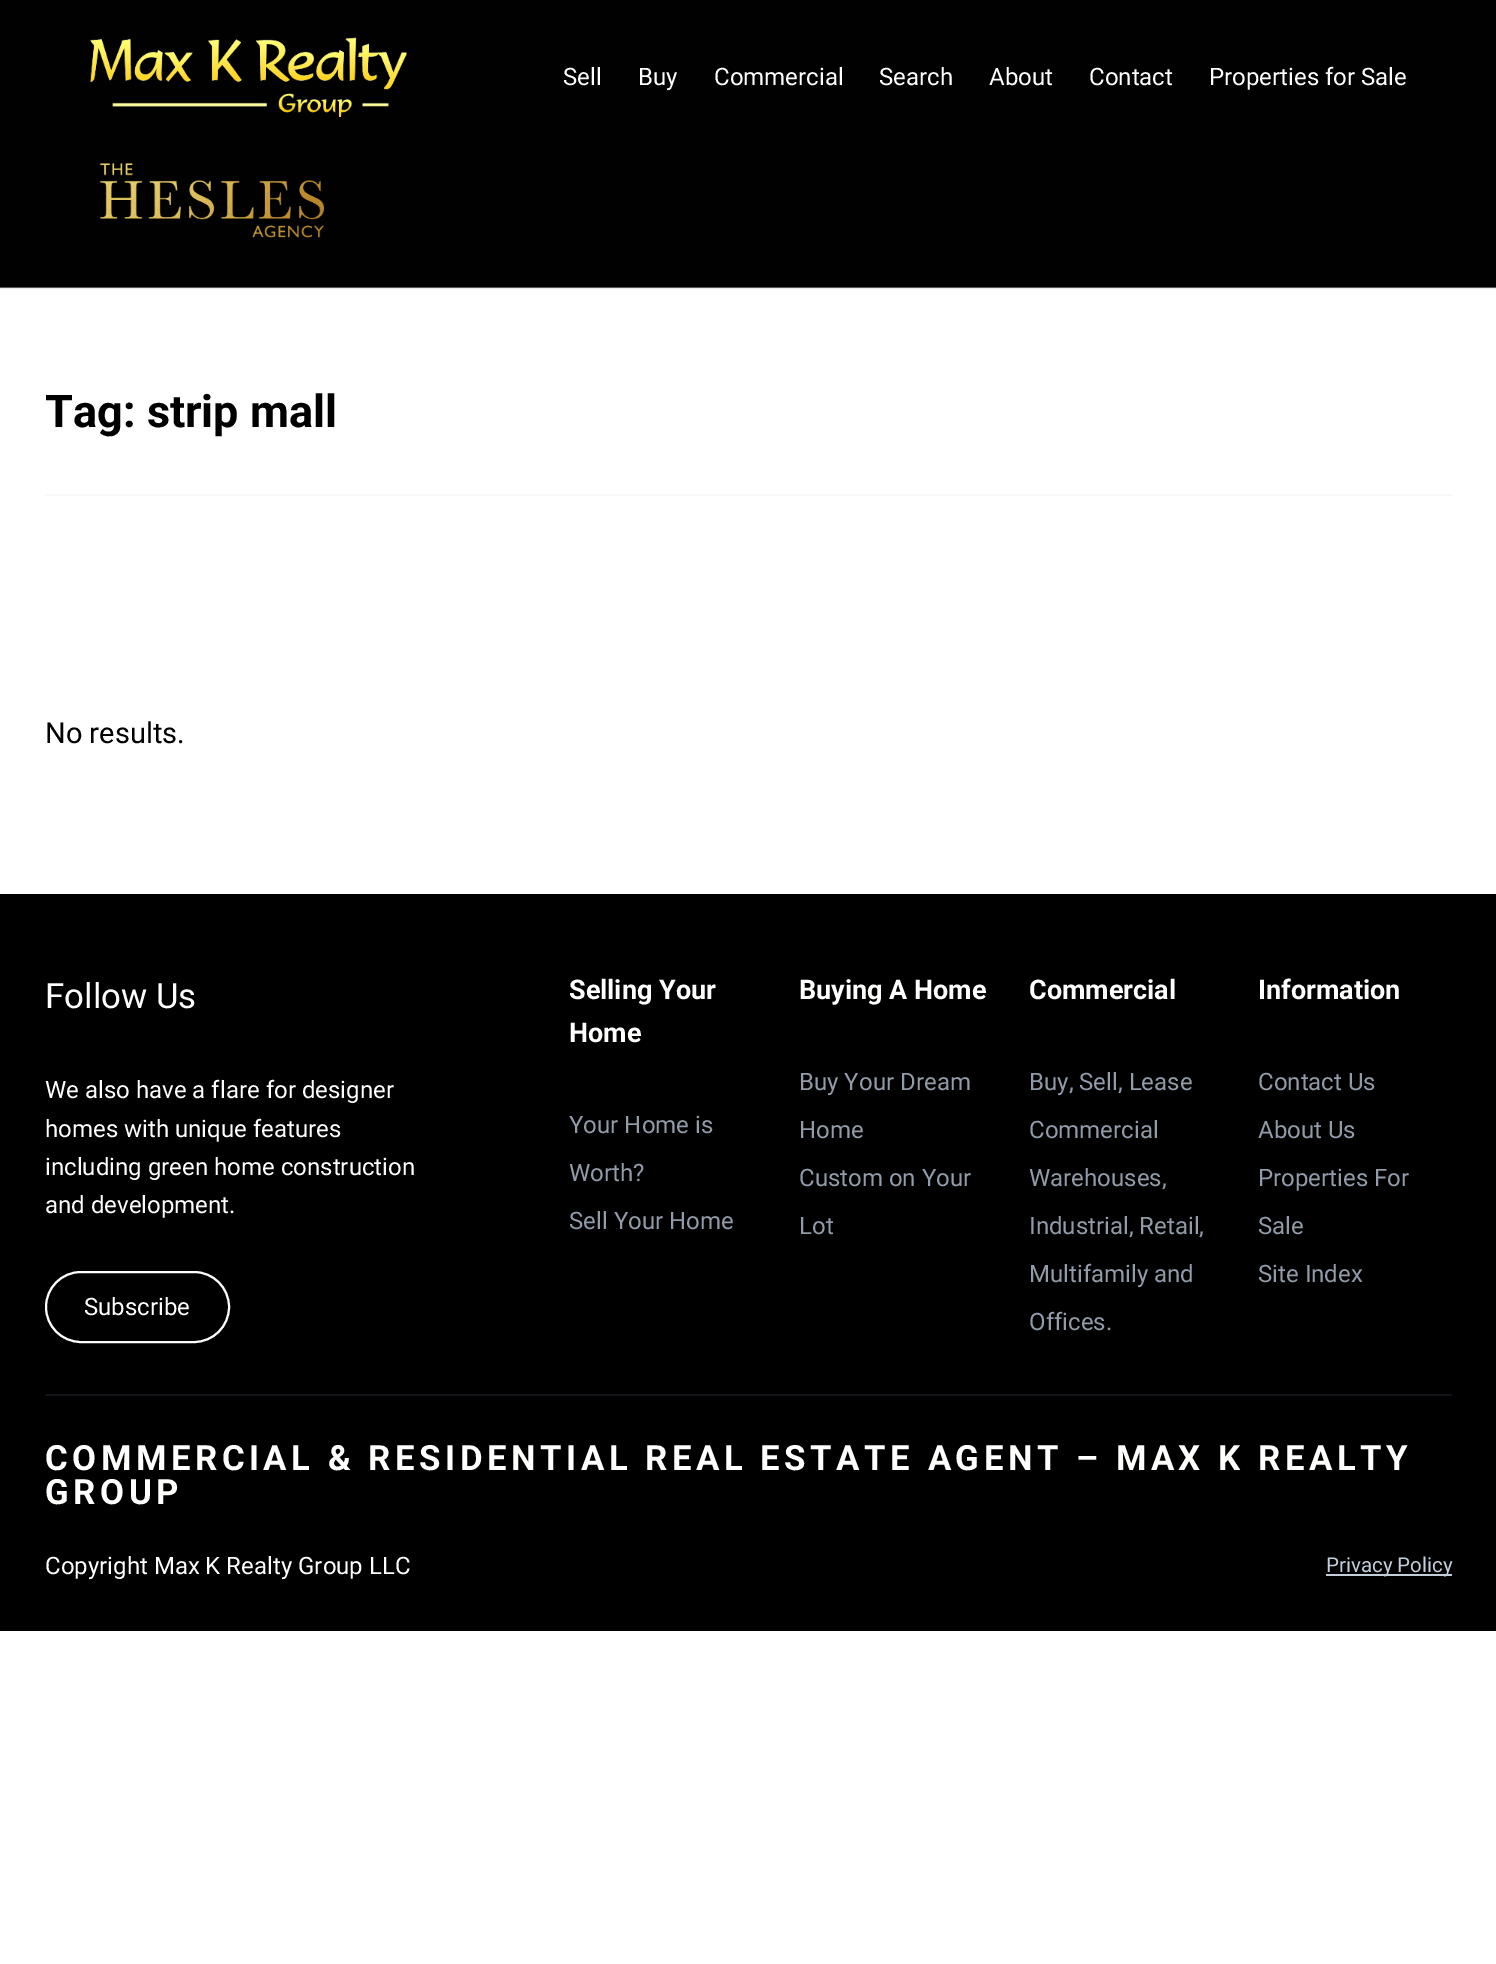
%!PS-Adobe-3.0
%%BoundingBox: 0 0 1496 1964
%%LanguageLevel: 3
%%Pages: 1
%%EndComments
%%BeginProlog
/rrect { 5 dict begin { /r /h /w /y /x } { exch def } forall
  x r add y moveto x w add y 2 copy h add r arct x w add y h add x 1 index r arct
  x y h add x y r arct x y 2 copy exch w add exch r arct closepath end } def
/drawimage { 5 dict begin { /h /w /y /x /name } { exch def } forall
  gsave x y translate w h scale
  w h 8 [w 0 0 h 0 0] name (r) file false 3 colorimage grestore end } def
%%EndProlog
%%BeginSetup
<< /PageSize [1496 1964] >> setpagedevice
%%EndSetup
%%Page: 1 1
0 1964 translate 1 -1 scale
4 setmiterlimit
1 setgray
0 0 1496 1964 rectfill
0.918 setgray
0 288 1496 1 rectfill
0.004 setgray
0 0 1496 287 rectfill
0.341 setgray
0 287 1496 1 rectfill
(images/1.raw) 90 37 317 80 drawimage
(images/2.raw) 99 163 225 75 drawimage
0.969 setgray
45 494 1407 2 rectfill
0 0 0.004 setrgbcolor
0 894 1496 737 rectfill
1 setgray
2 setlinewidth
46 1272 183 70 35 rrect stroke
0.071 0.078 0.098 setrgbcolor
45 1394 1407 2 rectfill
0.761 0.812 0.855 setrgbcolor
1326 1574 126 2 rectfill
/Roboto-Regular [24 0 0 -24 0 0] selectfont
1 1 0.996 setrgbcolor
563 85 moveto (Sell) show
638 85 moveto (Buy) show
714 85 moveto (Commercial) show
879 85 moveto (Search) show
989 85 moveto (About) show
1089 85 moveto (Contact) show
1209 85 moveto (Properties for Sale) show
/Roboto-Bold [45 0 0 -45 0 0] selectfont
0 setgray
45 427 moveto (Tag: strip mall) show
/Roboto-Regular [29 0 0 -29 0 0] selectfont
45 743 moveto (No results.) show
/Roboto-Regular [34.8 0 0 -34.8 0 0] selectfont
1 1 0.996 setrgbcolor
45 1008 moveto (Follow Us) show
/Roboto-Regular [24 0 0 -24 0 0] selectfont
45 1098 moveto (We also have a flare for designer) show
45 1137 moveto (homes with unique features) show
45 1175 moveto (including green home construction) show
45 1213 moveto (and development.) show
84 1315 moveto (Subscribe) show
/Roboto-Bold [27 0 0 -27 0 0] selectfont
569 999 moveto (Selling Your) show
569 1042 moveto (Home) show
/Roboto-Regular [24 0 0 -24 0 0] selectfont
0.573 0.608 0.659 setrgbcolor
569 1133 moveto (Your Home is) show
569 1181 moveto (Worth?) show
569 1229 moveto (Sell Your Home) show
/Roboto-Bold [27 0 0 -27 0 0] selectfont
1 1 0.996 setrgbcolor
799 999 moveto (Buying A Home) show
/Roboto-Regular [24 0 0 -24 0 0] selectfont
0.573 0.608 0.659 setrgbcolor
799 1090 moveto (Buy Your Dream) show
799 1138 moveto (Home) show
799 1186 moveto (Custom on Your) show
799 1234 moveto (Lot) show
/Roboto-Bold [27 0 0 -27 0 0] selectfont
1 1 0.996 setrgbcolor
1029 999 moveto (Commercial) show
/Roboto-Regular [24 0 0 -24 0 0] selectfont
0.573 0.608 0.659 setrgbcolor
1029 1090 moveto (Buy, Sell, Lease) show
1029 1138 moveto (Commercial) show
1029 1186 moveto (Warehouses,) show
1029 1234 moveto (Industrial, Retail,) show
1029 1282 moveto (Multifamily and) show
1029 1330 moveto (Offices.) show
/Roboto-Bold [27 0 0 -27 0 0] selectfont
1 1 0.996 setrgbcolor
1258 999 moveto (Information) show
/Roboto-Regular [24 0 0 -24 0 0] selectfont
0.573 0.608 0.659 setrgbcolor
1258 1090 moveto (Contact Us) show
1258 1138 moveto (About Us) show
1258 1186 moveto (Properties For) show
1258 1234 moveto (Sale) show
1258 1282 moveto (Site Index) show
/Roboto-Bold [34.8 0 0 -34.8 0 0] selectfont
1 1 0.996 setrgbcolor
45 1470 moveto 4.5 0 (COMMERCIAL & RESIDENTIAL REAL ESTATE AGENT) ashow
1076 1470 moveto 4.5 0 (– MAX K REALTY) ashow
45 1504 moveto 4.5 0 (GROUP) ashow
/Roboto-Regular [24 0 0 -24 0 0] selectfont
45 1574 moveto (Copyright Max K Realty Group LLC) show
/Roboto-Regular [20.5 0 0 -20.5 0 0] selectfont
0.761 0.812 0.855 setrgbcolor
1326 1572 moveto (Privacy Policy) show
showpage
%%EOF
